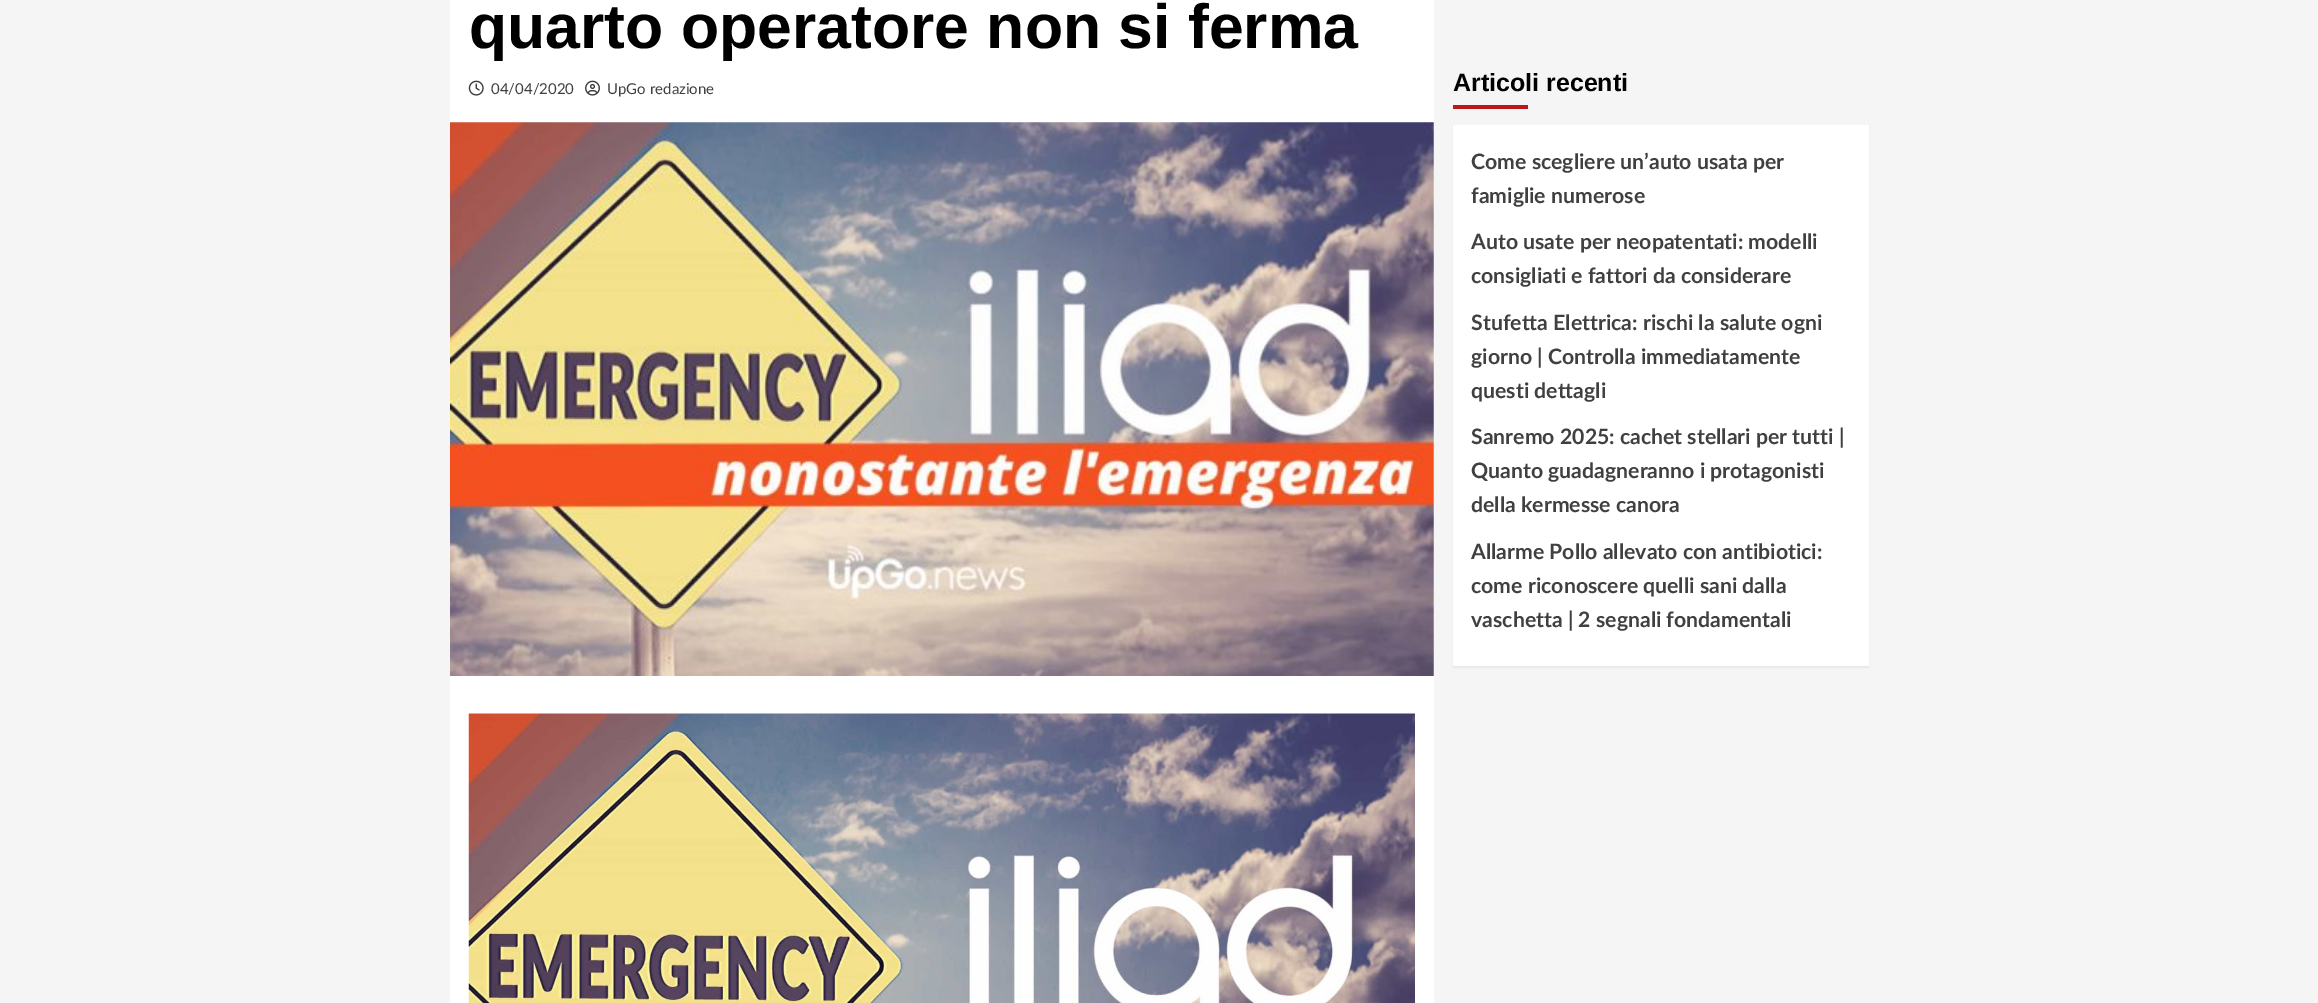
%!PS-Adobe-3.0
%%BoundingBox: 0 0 2318 1003
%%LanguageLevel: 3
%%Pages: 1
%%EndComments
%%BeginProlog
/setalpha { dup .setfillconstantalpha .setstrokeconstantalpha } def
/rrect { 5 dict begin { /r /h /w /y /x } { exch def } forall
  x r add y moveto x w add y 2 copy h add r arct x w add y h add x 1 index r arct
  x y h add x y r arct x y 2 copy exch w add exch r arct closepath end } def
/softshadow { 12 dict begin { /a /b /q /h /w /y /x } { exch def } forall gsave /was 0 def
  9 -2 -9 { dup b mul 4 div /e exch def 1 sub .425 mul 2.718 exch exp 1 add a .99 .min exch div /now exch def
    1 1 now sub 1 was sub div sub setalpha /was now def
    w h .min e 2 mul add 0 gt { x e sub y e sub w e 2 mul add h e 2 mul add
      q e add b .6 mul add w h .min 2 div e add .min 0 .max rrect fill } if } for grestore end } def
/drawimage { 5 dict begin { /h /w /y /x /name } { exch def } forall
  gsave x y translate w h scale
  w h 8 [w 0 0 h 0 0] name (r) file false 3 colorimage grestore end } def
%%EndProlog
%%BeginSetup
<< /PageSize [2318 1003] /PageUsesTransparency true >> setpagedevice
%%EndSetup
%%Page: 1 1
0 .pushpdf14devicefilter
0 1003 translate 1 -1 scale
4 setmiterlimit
0.961 setgray
0 0 2318 1003 rectfill
1 setgray
450 0 984 1003 rectfill
(images/1.raw) 468 80 16 16 drawimage
(images/2.raw) 585 80 15 16 drawimage
(images/3.raw) 450 122 984 554 drawimage
(images/4.raw) 468 713 947 290 drawimage
0.733 0.098 0.098 setrgbcolor
1453 105 75 4 rectfill
0 setgray
1453 126 416 542 0 1 0.05 softshadow
1 setgray
1453 125 416 541 rectfill
/LiberationSans-Bold [62.5 0 0 -62.5 0 0] selectfont
0 setgray
469 48 moveto (quarto operatore non si ferma) show
/Lato-Regular [15 0 0 -15 0 0] selectfont
0.251 setgray
491 94 moveto (04/04/2020) show
607 94 moveto (UpGo redazione) show
/LiberationSans-Bold [25 0 0 -25 0 0] selectfont
0 setgray
1453 91 moveto (Articoli recenti) show
/Lato-Bold [21.25 0 0 -21.25 0 0] selectfont
0.251 setgray
1471 169 moveto (Come scegliere un’auto usata per) show
1471 203 moveto (famiglie numerose) show
1471 249 moveto (Auto usate per neopatentati: modelli) show
1471 283 moveto (consigliati e fattori da considerare) show
1471 330 moveto (Stufetta Elettrica: rischi la salute ogni) show
1471 364 moveto (giorno | Controlla immediatamente) show
1471 398 moveto (questi dettagli) show
1471 444 moveto (Sanremo 2025: cachet stellari per tutti |) show
1471 478 moveto (Quanto guadagneranno i protagonisti) show
1471 512 moveto (della kermesse canora) show
1471 559 moveto (Allarme Pollo allevato con antibiotici:) show
1471 593 moveto (come riconoscere quelli sani dalla) show
1471 627 moveto (vaschetta | 2 segnali fondamentali) show
.poppdf14devicefilter showpage
%%EOF
